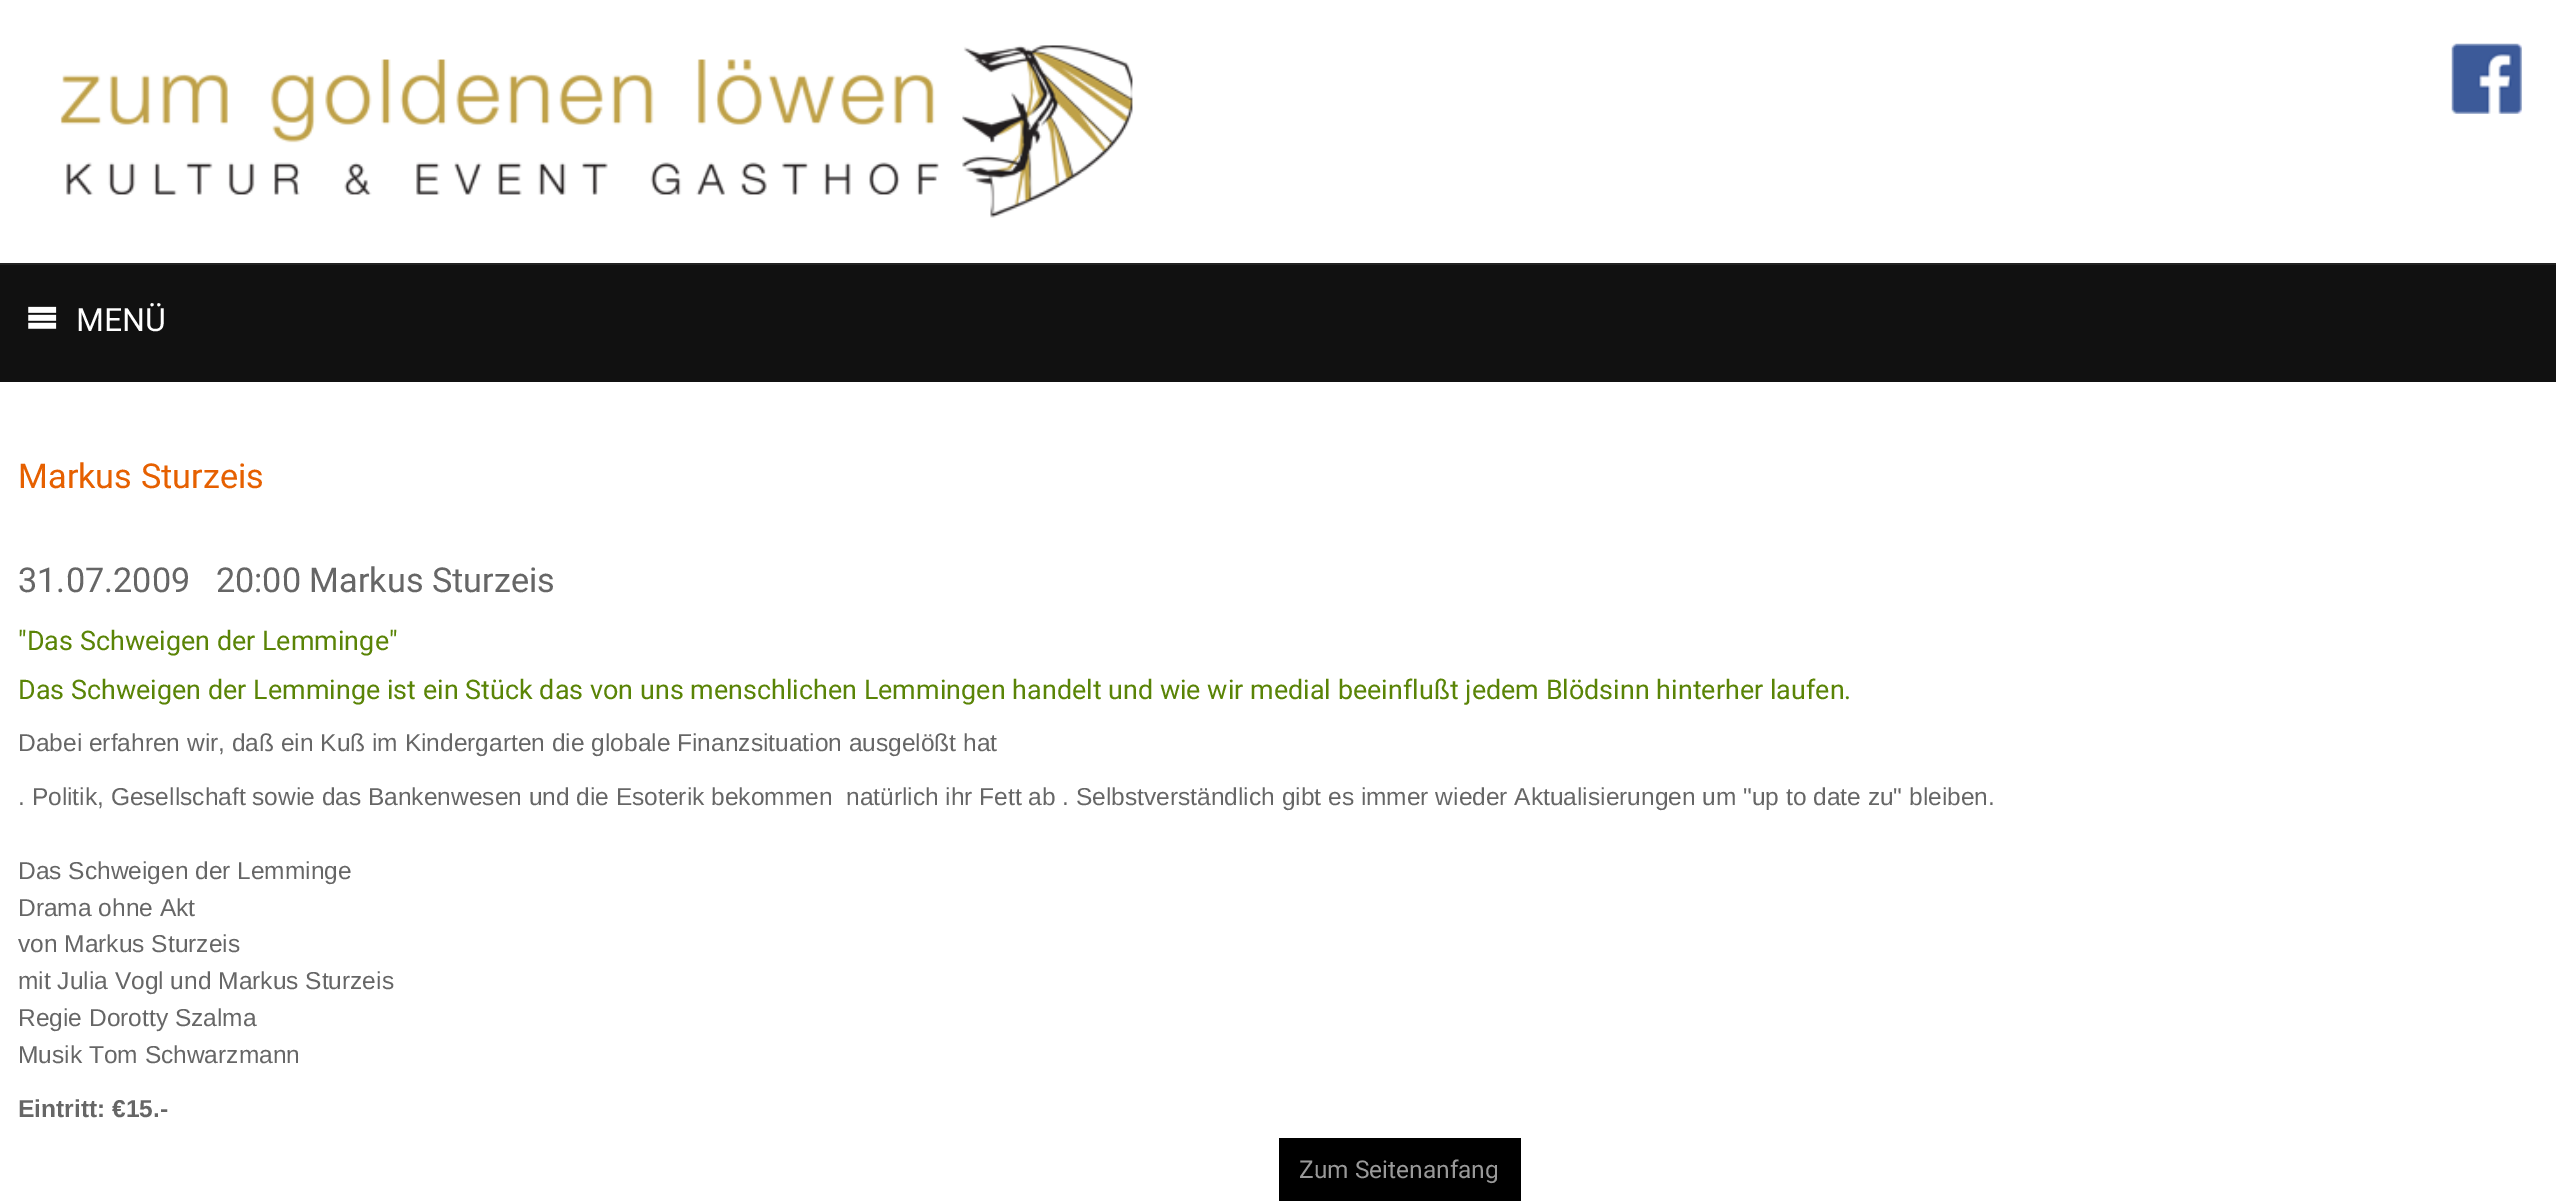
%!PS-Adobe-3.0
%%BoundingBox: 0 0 2556 1201
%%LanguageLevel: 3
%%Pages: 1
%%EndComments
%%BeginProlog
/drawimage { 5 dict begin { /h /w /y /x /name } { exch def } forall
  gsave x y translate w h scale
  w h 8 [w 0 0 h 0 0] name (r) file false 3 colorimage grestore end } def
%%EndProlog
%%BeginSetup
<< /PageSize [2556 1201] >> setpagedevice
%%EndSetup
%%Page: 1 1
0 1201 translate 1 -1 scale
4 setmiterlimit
1 setgray
0 0 2556 1201 rectfill
(images/1.raw) 60 45 1073 173 drawimage
(images/2.raw) 2451 43 71 71 drawimage
0.067 setgray
0 265 2556 117 rectfill
0.133 setgray
0 263 2556 2 rectfill
(images/3.raw) 28 306 29 23 drawimage
0 setgray
1279 1138 242 63 rectfill
/Roboto-Regular [32 0 0 -32 0 0] selectfont
1 setgray
76 331 moveto (MENÜ) show
/Roboto-Regular [34.25 0 0 -34.25 0 0] selectfont
0.902 0.376 0 setrgbcolor
18 488 moveto (Markus Sturzeis) show
0.4 setgray
18 592 moveto (31.07.2009   20:00 Markus Sturzeis) show
/Roboto-Regular [26.95 0 0 -26.95 0 0] selectfont
0.353 0.518 0.024 setrgbcolor
18 650 moveto ("Das Schweigen der Lemminge") show
18 699 moveto (Das Schweigen der Lemminge ist ein Stück das von uns menschlichen Lemmingen handelt und wie wir medial beeinflußt jedem Blödsinn hinterher laufen.) show
/LiberationSans-Regular [24.5 0 0 -24.5 0 0] selectfont
0.4 setgray
18 751 moveto (Dabei erfahren wir, daß ein Kuß im Kindergarten die globale Finanzsituation ausgelößt hat) show
18 805 moveto (. Politik, Gesellschaft sowie das Bankenwesen und die Esoterik bekommen  natürlich ihr Fett ab . Selbstverständlich gibt es immer wieder Aktualisierungen um "up to date zu" bleiben.) show
18 879 moveto (Das Schweigen der Lemminge) show
18 916 moveto (Drama ohne Akt) show
18 952 moveto (von Markus Sturzeis) show
18 989 moveto (mit Julia Vogl und Markus Sturzeis) show
18 1026 moveto (Regie Dorotty Szalma) show
18 1063 moveto (Musik Tom Schwarzmann) show
/LiberationSans-Bold [24.5 0 0 -24.5 0 0] selectfont
18 1117 moveto (Eintritt: €15.-) show
/Roboto-Regular [24.5 0 0 -24.5 0 0] selectfont
0.6 setgray
1299 1178 moveto (Zum Seitenanfang) show
showpage
%%EOF
